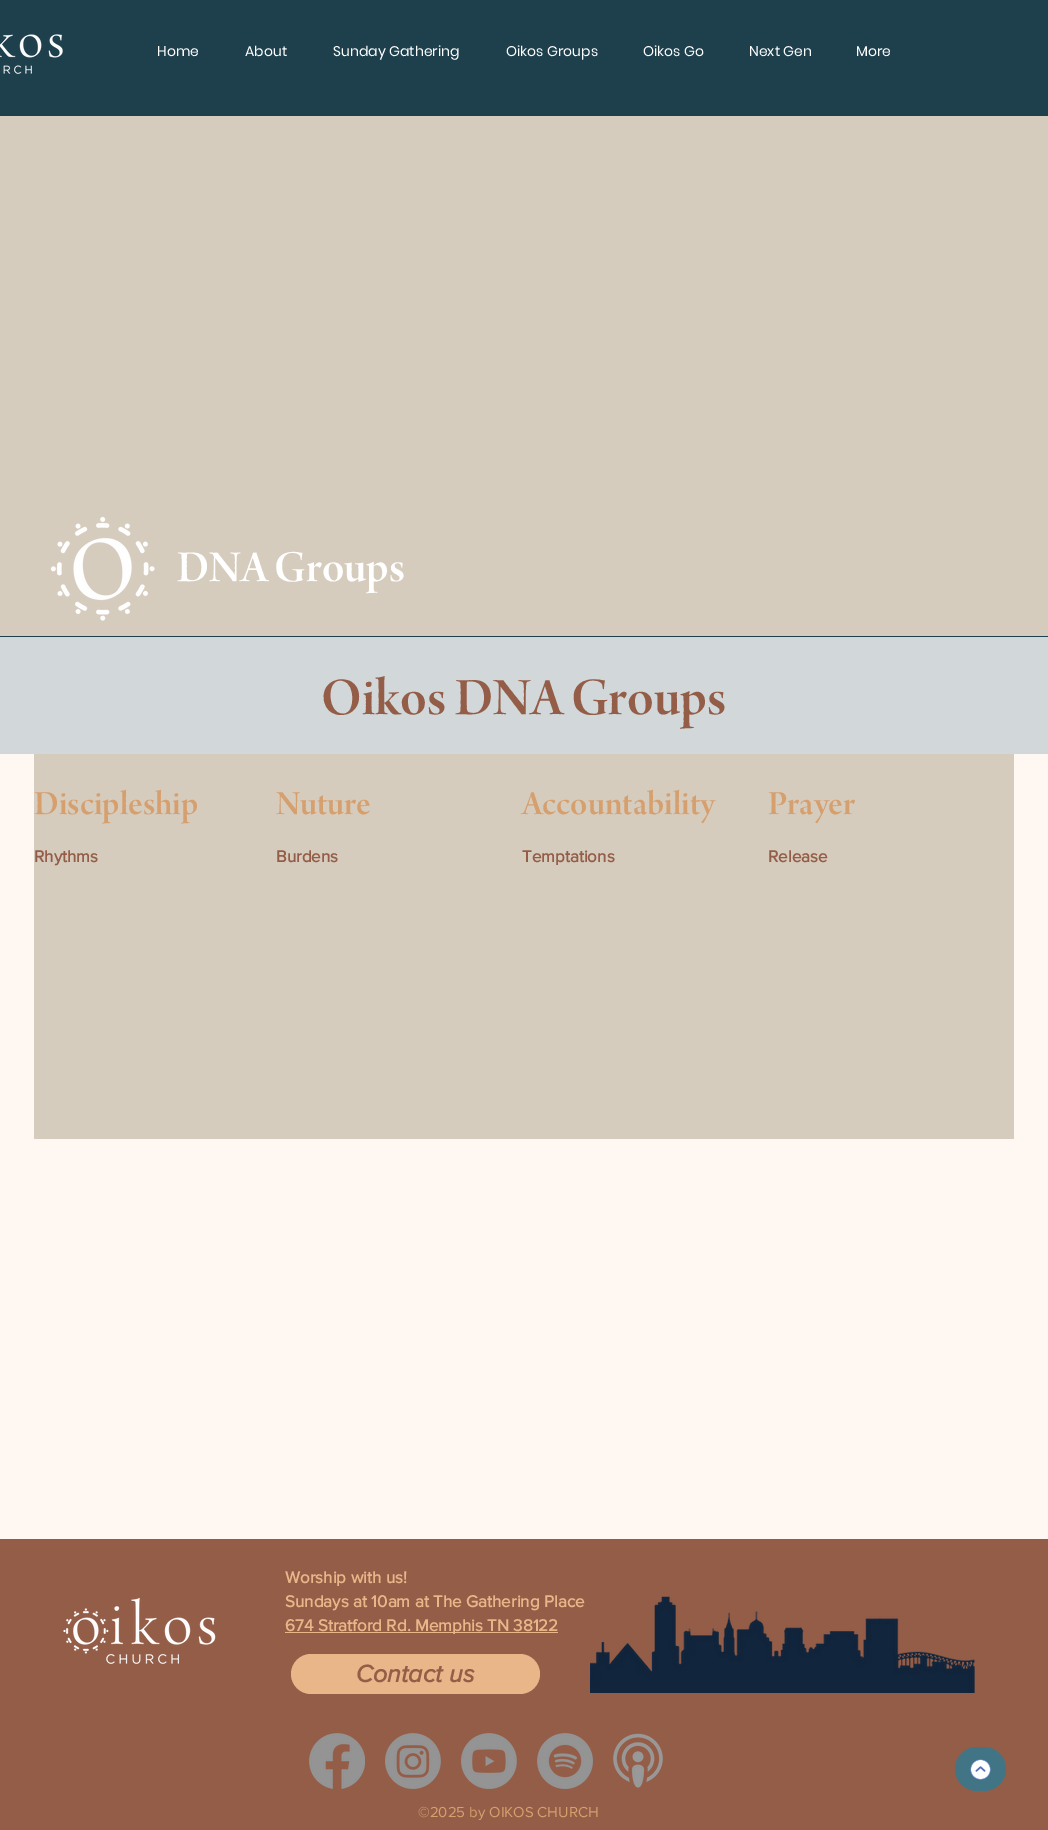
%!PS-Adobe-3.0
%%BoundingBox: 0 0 1048 1830
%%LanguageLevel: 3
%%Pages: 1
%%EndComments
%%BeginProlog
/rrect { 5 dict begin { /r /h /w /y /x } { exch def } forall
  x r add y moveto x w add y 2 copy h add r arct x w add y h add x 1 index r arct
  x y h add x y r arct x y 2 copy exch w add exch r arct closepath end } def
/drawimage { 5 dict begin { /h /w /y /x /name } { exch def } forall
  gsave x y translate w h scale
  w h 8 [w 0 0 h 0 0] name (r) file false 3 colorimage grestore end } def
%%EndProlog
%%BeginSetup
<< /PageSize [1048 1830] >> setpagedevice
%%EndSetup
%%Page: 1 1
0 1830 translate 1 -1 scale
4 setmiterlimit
1 0.969 0.949 setrgbcolor
0 0 1048 1830 rectfill
0.118 0.251 0.302 setrgbcolor
0 0 1048 116 rectfill
(images/1.raw) 0 34 63 40 drawimage
0.839 0.8 0.745 setrgbcolor
0 116 1048 520 rectfill
(images/2.raw) 50 516 105 105 drawimage
0.118 0.251 0.302 setrgbcolor
0 636 1048 1 rectfill
0.824 0.843 0.851 setrgbcolor
0 637 1048 117 rectfill
0.839 0.8 0.745 setrgbcolor
34 754 980 385 rectfill
0.58 0.365 0.282 setrgbcolor
0 1539 1048 291 rectfill
(images/3.raw) 63 1597 153 67 drawimage
0.914 0.714 0.537 setrgbcolor
285 1632 273 1 rectfill
(images/4.raw) 590 1596 385 97 drawimage
291 1654 249 40 20 rrect fill
(images/5.raw) 309 1733 56 56 drawimage
(images/6.raw) 385 1733 56 56 drawimage
(images/7.raw) 461 1733 56 56 drawimage
(images/8.raw) 537 1733 56 56 drawimage
(images/9.raw) 613 1733 50 55 drawimage
0.255 0.459 0.525 setrgbcolor
955 1747 51 44 22 rrect fill
(images/10.raw) 970 1759 21 21 drawimage
/Poppins-Regular [14 0 0 -14 0 0] selectfont
1 setgray
157 56 moveto (Home) show
245 56 moveto (About) show
333 56 moveto (Sunday Gathering) show
506 56 moveto (Oikos Groups) show
643 56 moveto (Oikos Go) show
749 56 moveto (Next Gen) show
856 56 moveto (More) show
/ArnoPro-SemiBold [47 0 0 -47 0 0] selectfont
177 581 moveto (DNA Groups) show
/ArnoPro-SemiBold [56 0 0 -56 0 0] selectfont
0.58 0.365 0.282 setrgbcolor
321 714 moveto (Oikos DNA Groups) show
/ArnoPro-SemiBold [36 0 0 -36 0 0] selectfont
0.839 0.624 0.431 setrgbcolor
34 814 moveto (Discipleship) show
/ProximaNova-Bold [17 0 0 -17 0 0] selectfont
0.58 0.365 0.282 setrgbcolor
34 862 moveto (Rhythms) show
/ArnoPro-SemiBold [36 0 0 -36 0 0] selectfont
0.839 0.624 0.431 setrgbcolor
276 814 moveto (Nuture) show
/ProximaNova-Bold [17 0 0 -17 0 0] selectfont
0.58 0.365 0.282 setrgbcolor
276 862 moveto (Burdens) show
/ArnoPro-SemiBold [36 0 0 -36 0 0] selectfont
0.839 0.624 0.431 setrgbcolor
522 814 moveto (Accountability) show
/ProximaNova-Bold [17 0 0 -17 0 0] selectfont
0.58 0.365 0.282 setrgbcolor
522 862 moveto (Temptations) show
/ArnoPro-SemiBold [36 0 0 -36 0 0] selectfont
0.839 0.624 0.431 setrgbcolor
768 814 moveto (Prayer) show
/ProximaNova-Bold [17 0 0 -17 0 0] selectfont
0.58 0.365 0.282 setrgbcolor
768 862 moveto (Release) show
0.914 0.714 0.537 setrgbcolor
285 1583 moveto (Worship with us!) show
285 1607 moveto (Sundays at 10am at The Gathering Place) show
285 1631 moveto (674 Stratford Rd. Memphis TN 38122) show
/ProximaNova-BoldItalic [25 0 0 -25 0 0] selectfont
0.58 0.365 0.282 setrgbcolor
356 1682 moveto (Contact us) show
/ProximaNova-Regular [15 0 0 -15 0 0] selectfont
0.839 0.624 0.431 setrgbcolor
418 1817 moveto (©2025 by OIKOS CHURCH) show
showpage
%%EOF
